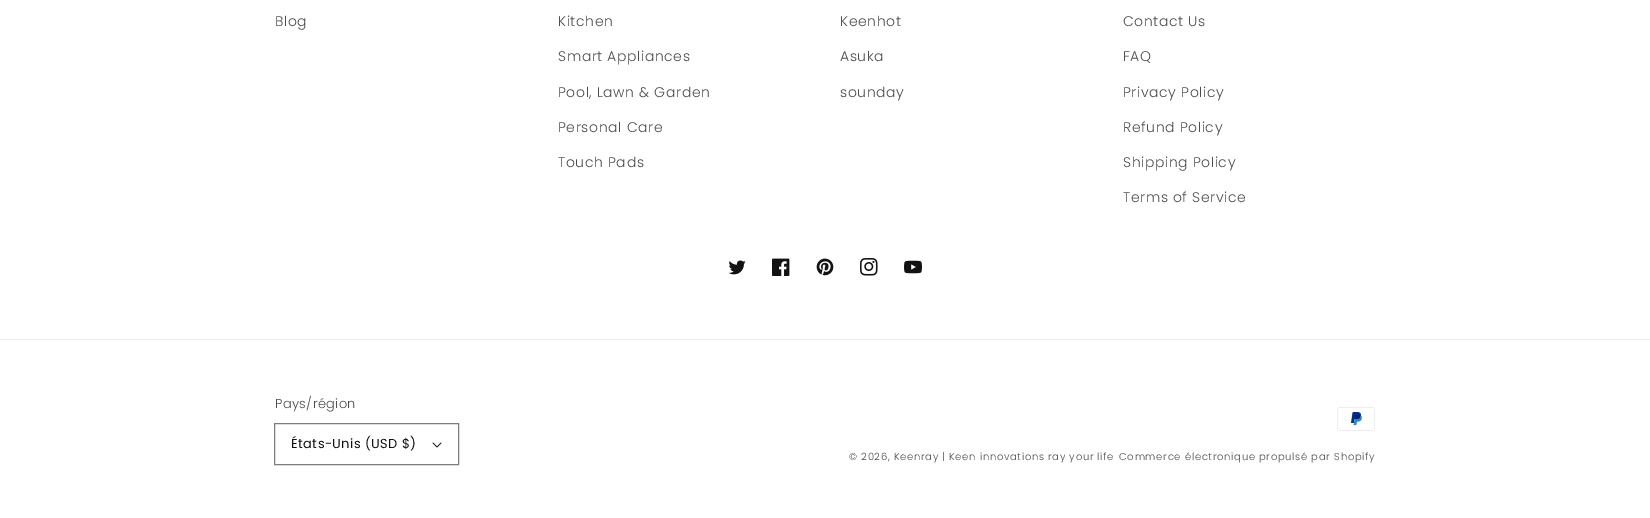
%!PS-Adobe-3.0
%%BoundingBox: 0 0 1650 518
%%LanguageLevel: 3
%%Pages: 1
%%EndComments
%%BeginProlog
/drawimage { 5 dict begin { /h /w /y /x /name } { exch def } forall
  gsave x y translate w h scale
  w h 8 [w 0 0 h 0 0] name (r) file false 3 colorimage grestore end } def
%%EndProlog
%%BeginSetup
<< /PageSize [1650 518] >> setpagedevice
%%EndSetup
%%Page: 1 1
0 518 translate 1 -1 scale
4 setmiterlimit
1 setgray
0 0 1650 518 rectfill
(images/1.raw) 728 260 18 15 drawimage
(images/2.raw) 772 258 18 18 drawimage
(images/3.raw) 816 258 18 18 drawimage
(images/4.raw) 860 258 18 18 drawimage
(images/5.raw) 904 260 18 14 drawimage
0.925 setgray
0 339 1650 1 rectfill
0.49 setgray
274.5 423.5 184 41 rectstroke
(images/6.raw) 432 442 10 6 drawimage
(images/7.raw) 1337 407 38 24 drawimage
/Poppins-Light [14 0 0 -14 0 0] selectfont
0.302 setgray
275 26 moveto 0.6 0 (Blog) ashow
558 26 moveto 0.6 0 (Kitchen) ashow
558 61 moveto 0.6 0 (Smart Appliances) ashow
558 97 moveto 0.6 0 (Pool, Lawn & Garden) ashow
558 132 moveto 0.6 0 (Personal Care) ashow
558 167 moveto 0.6 0 (Touch Pads) ashow
840 26 moveto 0.6 0 (Keenhot) ashow
840 61 moveto 0.6 0 (Asuka) ashow
840 97 moveto 0.6 0 (sounday) ashow
1123 26 moveto 0.6 0 (Contact Us) ashow
1123 61 moveto 0.6 0 (FAQ) ashow
1123 97 moveto 0.6 0 (Privacy Policy) ashow
1123 132 moveto 0.6 0 (Refund Policy) ashow
1123 167 moveto 0.6 0 (Shipping Policy) ashow
1123 202 moveto 0.6 0 (Terms of Service) ashow
/Poppins-Light [13 0 0 -13 0 0] selectfont
275 408 moveto 0.4 0 (Pays/région) ashow
/Poppins-Regular [13 0 0 -13 0 0] selectfont
0.071 setgray
291 448 moveto 0.4 0 (États-Unis \(USD $\)) ashow
/Poppins-Light [10 0 0 -10 0 0] selectfont
0.302 setgray
849 460 moveto 0.7 0 (© 2026, Keenray | Keen innovations ray your life) ashow
1119 460 moveto 0.7 0 (Commerce électronique propulsé par Shopify) ashow
showpage
%%EOF
